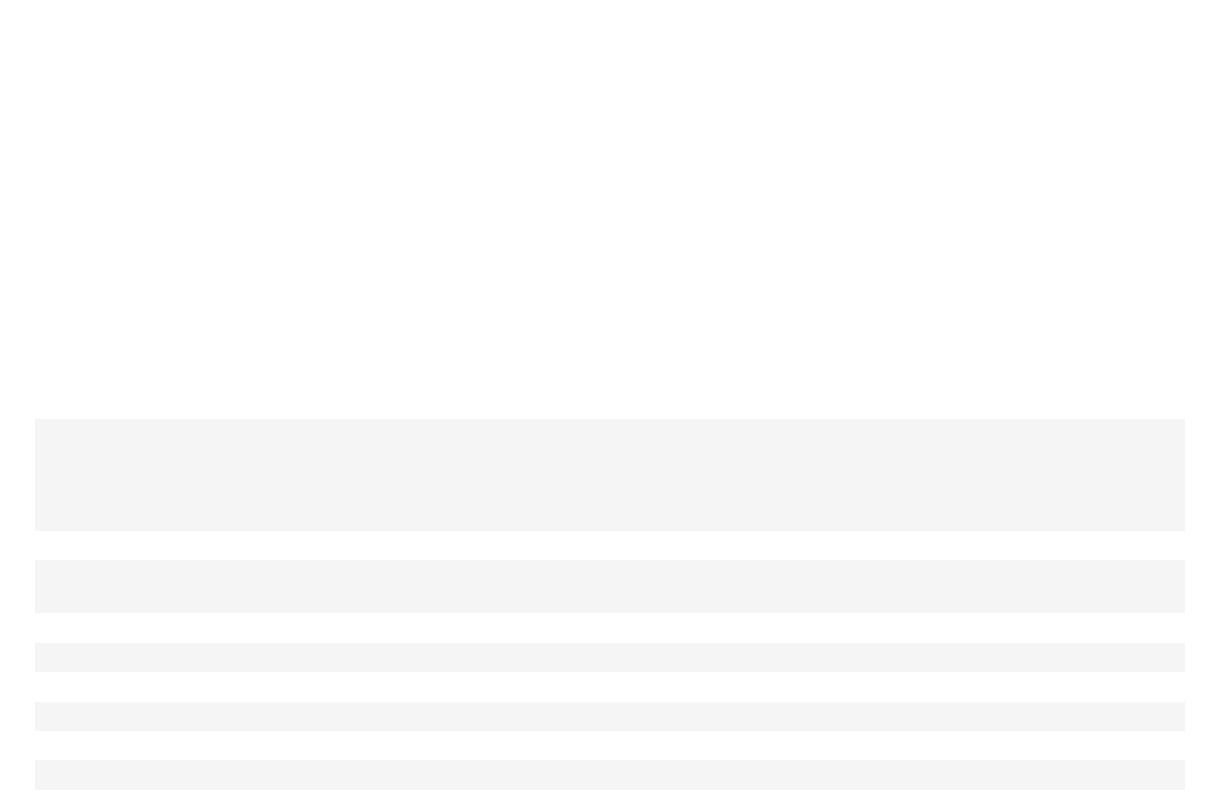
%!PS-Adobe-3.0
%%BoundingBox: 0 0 1220 812
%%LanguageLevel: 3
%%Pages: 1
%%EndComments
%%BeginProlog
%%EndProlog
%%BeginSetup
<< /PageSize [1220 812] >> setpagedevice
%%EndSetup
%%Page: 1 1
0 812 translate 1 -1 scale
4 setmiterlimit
1 setgray
0 0 1220 812 rectfill
0.961 setgray
35 419 1150 112 rectfill
35 560 1150 53 rectfill
35 643 1150 29 rectfill
35 702 1150 29 rectfill
35 760 1150 30 rectfill
showpage
%%EOF
